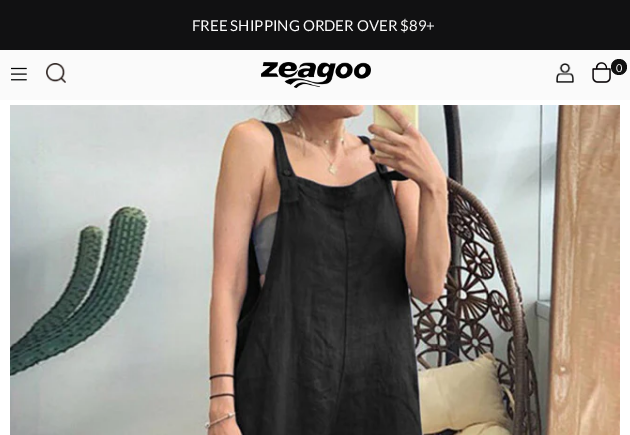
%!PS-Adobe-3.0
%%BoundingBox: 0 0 630 435
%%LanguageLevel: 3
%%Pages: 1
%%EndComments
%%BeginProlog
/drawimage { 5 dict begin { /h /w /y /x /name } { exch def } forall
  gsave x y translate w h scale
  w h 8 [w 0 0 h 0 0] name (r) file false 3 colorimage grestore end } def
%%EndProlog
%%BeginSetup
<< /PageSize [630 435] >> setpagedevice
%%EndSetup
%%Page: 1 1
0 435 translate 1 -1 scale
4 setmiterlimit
1 setgray
0 0 630 435 rectfill
0.067 0.067 0.071 setrgbcolor
0 0 630 50 rectfill
0.98 setgray
0 50 630 50 rectfill
(images/1.raw) 11 67 16 14 drawimage
(images/2.raw) 46 63 20 20 drawimage
(images/3.raw) 261 62 110 26 drawimage
(images/4.raw) 556 63 18 20 drawimage
(images/5.raw) 592 62 19 21 drawimage
0.067 setgray
newpath 619 67 8 0 360 arc closepath fill
(images/6.raw) 10 105 610 330 drawimage
/Lato-Regular [15 0 0 -15 0 0] selectfont
0.98 setgray
192 31 moveto (FREE SHIPPING ORDER OVER $89+) show
/Lato-Regular [11 0 0 -11 0 0] selectfont
616 72 moveto (0) show
showpage
%%EOF
